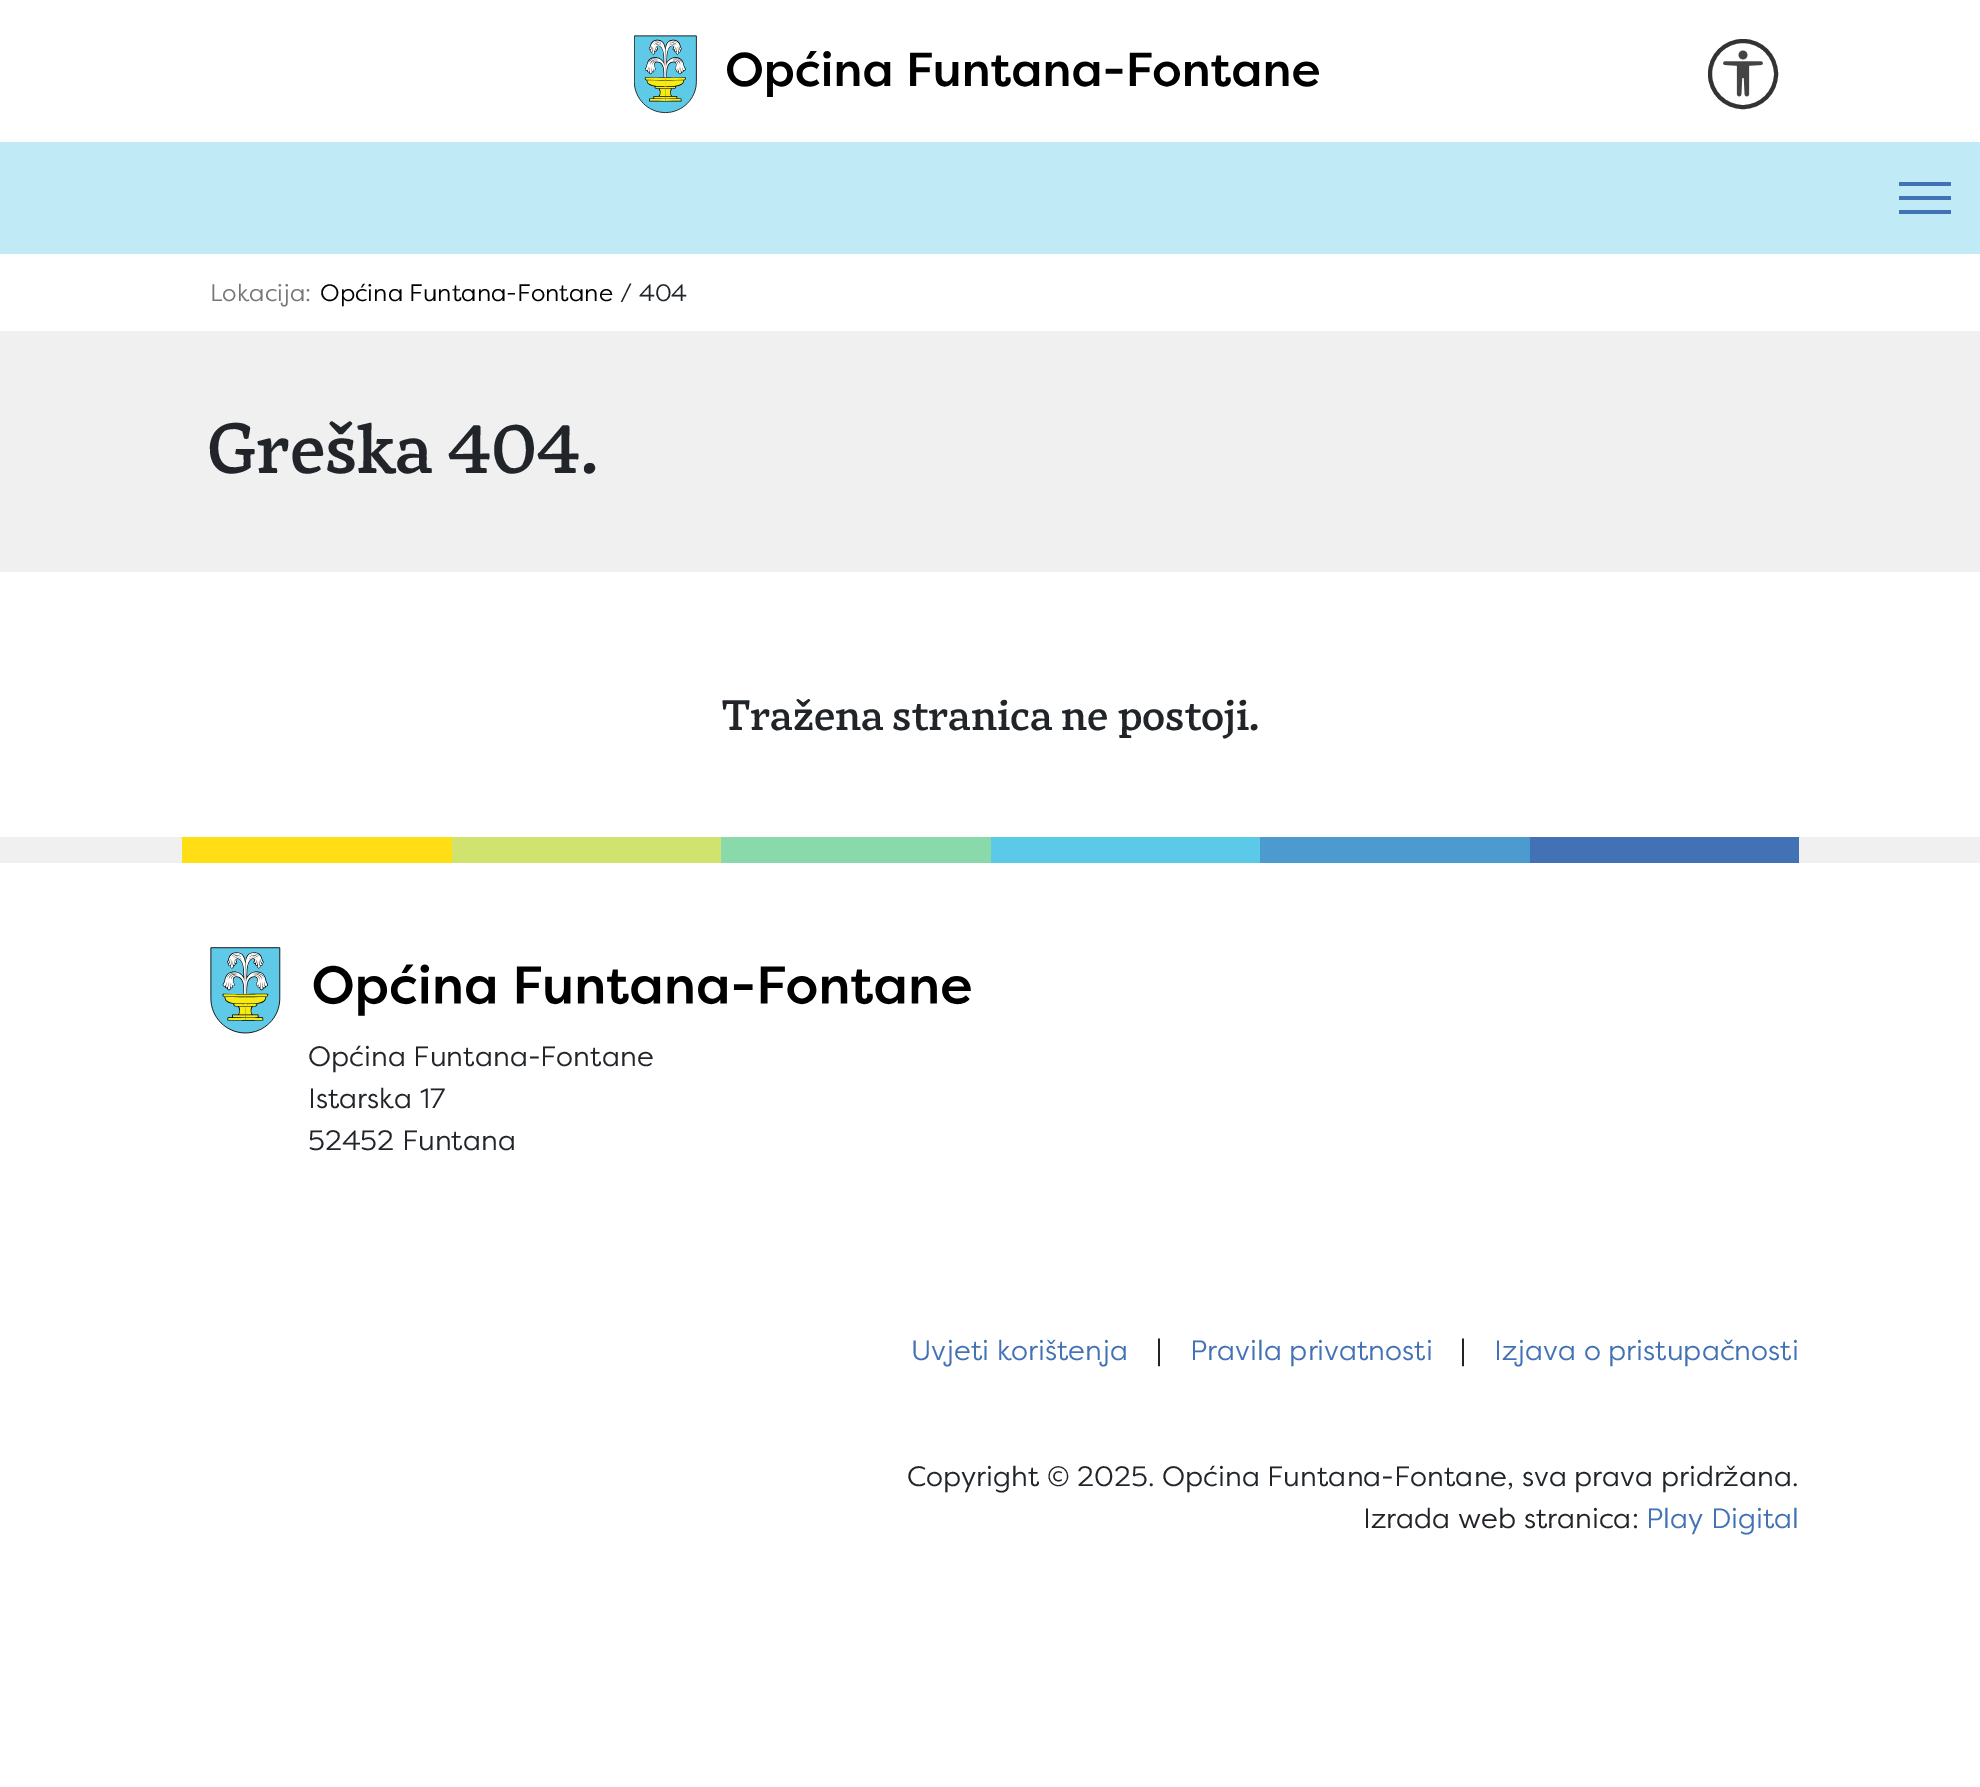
%!PS-Adobe-3.0
%%BoundingBox: 0 0 1980 1787
%%LanguageLevel: 3
%%Pages: 1
%%EndComments
%%BeginProlog
/drawimage { 5 dict begin { /h /w /y /x /name } { exch def } forall
  gsave x y translate w h scale
  w h 8 [w 0 0 h 0 0] name (r) file false 3 colorimage grestore end } def
%%EndProlog
%%BeginSetup
<< /PageSize [1980 1787] >> setpagedevice
%%EndSetup
%%Page: 1 1
0 1787 translate 1 -1 scale
4 setmiterlimit
1 setgray
0 0 1980 1787 rectfill
(images/1.raw) 634 35 686 79 drawimage
0.2 setgray
4 setlinewidth
newpath 1743 74 33 0 360 arc closepath stroke
(images/2.raw) 1723 50 40 47 drawimage
0.753 0.918 0.961 setrgbcolor
0 142 1980 112 rectfill
0.259 0.447 0.71 setrgbcolor
1899 182 52 4 rectfill
1899 196 52 4 rectfill
1899 210 52 4 rectfill
0.941 setgray
0 331 1980 241 rectfill
0 837 1980 26 rectfill
1 0.871 0.086 setrgbcolor
182 837 270 26 rectfill
0.82 0.89 0.435 setrgbcolor
452 837 269 26 rectfill
0.537 0.851 0.671 setrgbcolor
721 837 270 26 rectfill
0.357 0.792 0.91 setrgbcolor
991 837 269 26 rectfill
0.298 0.608 0.808 setrgbcolor
1260 837 270 26 rectfill
0.259 0.447 0.71 setrgbcolor
1530 837 269 26 rectfill
(images/3.raw) 210 947 761 87 drawimage
/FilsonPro-Regular [23.75 0 0 -23.75 0 0] selectfont
0.467 setgray
210 301 moveto (Lokacija:) show
0 setgray
320 301 moveto (Općina Funtana-Fontane) show
0.129 0.145 0.161 setrgbcolor
620 301 moveto (/ 404) show
/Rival-Medium [70 0 0 -70 0 0] selectfont
207 473 moveto (Greška 404.) show
/Rival-Medium [42 0 0 -42 0 0] selectfont
722 730 moveto (Tražena stranica ne postoji.) show
/FilsonPro-Regular [28 0 0 -28 0 0] selectfont
308 1066 moveto (Općina Funtana-Fontane) show
308 1108 moveto (Istarska 17) show
308 1150 moveto (52452 Funtana) show
0.259 0.447 0.71 setrgbcolor
911 1360 moveto (Uvjeti korištenja) show
0.129 0.145 0.161 setrgbcolor
1156 1360 moveto (|) show
0.259 0.447 0.71 setrgbcolor
1190 1360 moveto (Pravila privatnosti) show
0.129 0.145 0.161 setrgbcolor
1460 1360 moveto (|) show
0.259 0.447 0.71 setrgbcolor
1494 1360 moveto (Izjava o pristupačnosti) show
0.129 0.145 0.161 setrgbcolor
907 1486 moveto (Copyright © 2025. Općina Funtana-Fontane, sva prava pridržana.) show
1363 1528 moveto (Izrada web stranica:) show
0.259 0.447 0.71 setrgbcolor
1646 1528 moveto (Play Digital) show
showpage
%%EOF
